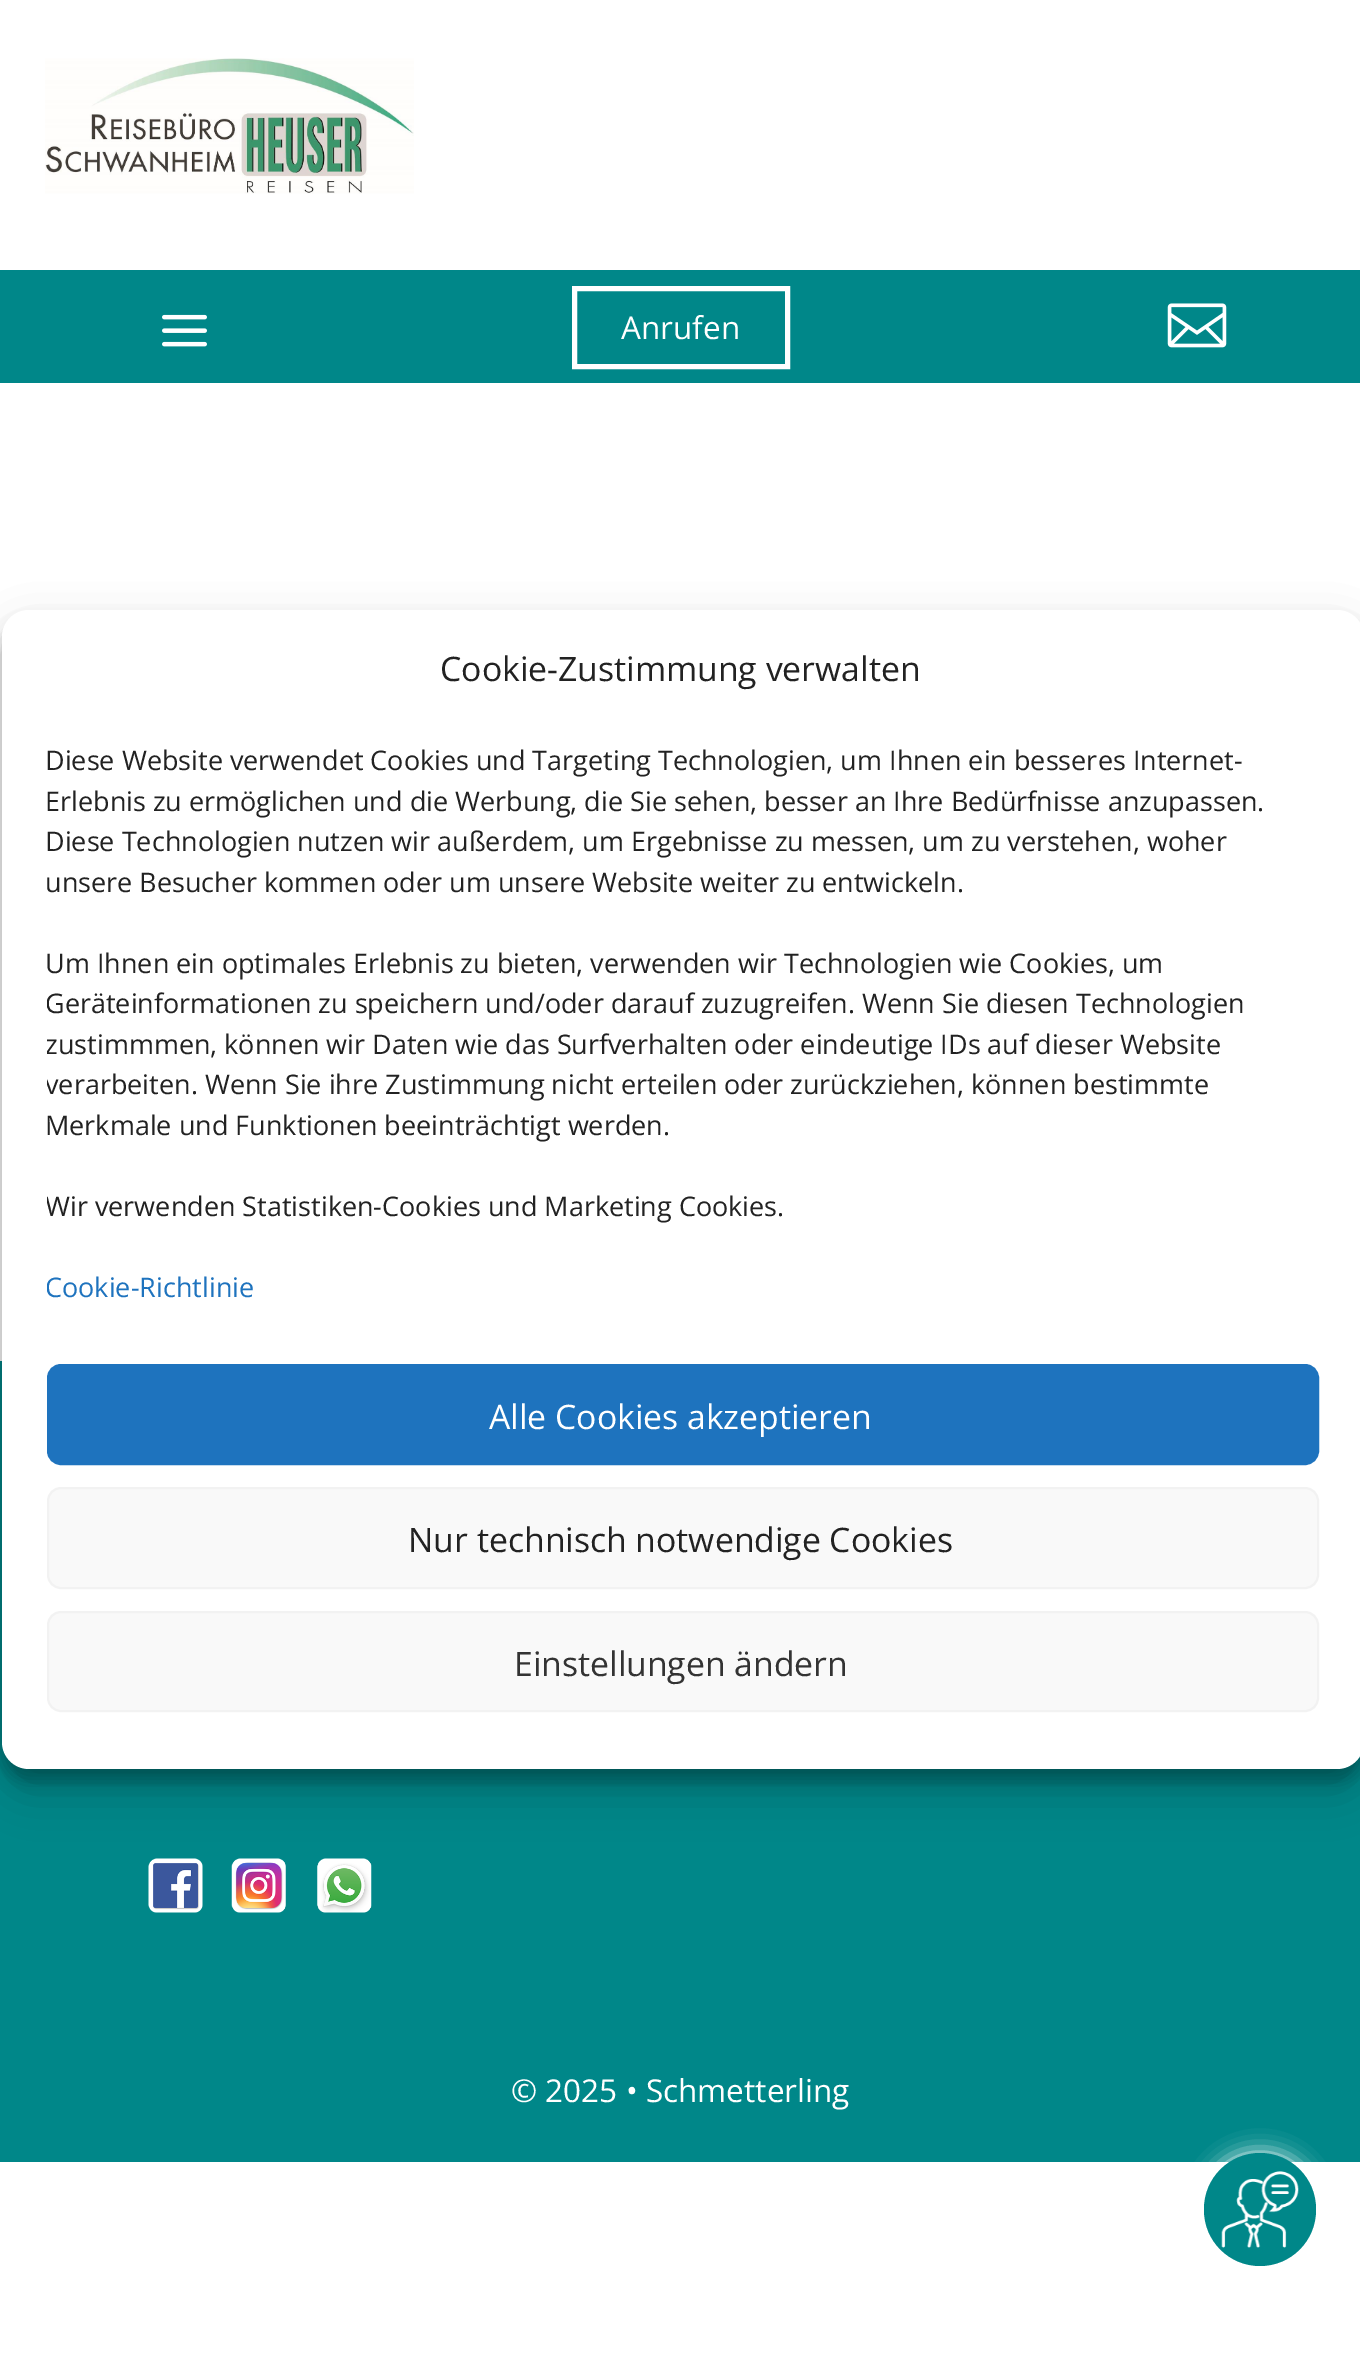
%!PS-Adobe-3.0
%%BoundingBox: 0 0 1360 2378
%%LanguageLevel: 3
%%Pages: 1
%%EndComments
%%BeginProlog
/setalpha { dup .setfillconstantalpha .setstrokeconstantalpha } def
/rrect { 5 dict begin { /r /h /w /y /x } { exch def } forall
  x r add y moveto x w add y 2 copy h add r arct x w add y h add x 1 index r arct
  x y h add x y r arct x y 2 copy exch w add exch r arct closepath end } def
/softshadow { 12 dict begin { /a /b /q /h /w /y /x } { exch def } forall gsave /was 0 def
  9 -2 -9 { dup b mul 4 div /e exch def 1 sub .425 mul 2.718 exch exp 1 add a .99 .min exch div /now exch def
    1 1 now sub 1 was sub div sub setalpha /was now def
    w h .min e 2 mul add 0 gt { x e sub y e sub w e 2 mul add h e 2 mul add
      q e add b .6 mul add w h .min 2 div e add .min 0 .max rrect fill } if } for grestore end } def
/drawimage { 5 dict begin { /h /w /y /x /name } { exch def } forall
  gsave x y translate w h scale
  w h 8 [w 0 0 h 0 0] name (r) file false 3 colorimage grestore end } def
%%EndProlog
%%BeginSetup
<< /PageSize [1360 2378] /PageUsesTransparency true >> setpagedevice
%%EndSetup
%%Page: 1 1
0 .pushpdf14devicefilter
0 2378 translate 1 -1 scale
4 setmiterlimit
1 setgray
0 0 1360 2378 rectfill
(images/1.raw) 45 58 369 136 drawimage
0 0.529 0.537 setrgbcolor
0 270 1360 113 rectfill
(images/2.raw) 162 314 45 33 drawimage
1 setgray
5 setlinewidth
574.5 288.5 213 78 rectstroke
(images/3.raw) 1167 303 60 45 drawimage
0 0.529 0.537 setrgbcolor
0 1361 1360 801 rectfill
(images/4.raw) 148 1858 55 55 drawimage
(images/5.raw) 231 1858 55 55 drawimage
(images/6.raw) 317 1858 55 55 drawimage
1 setgray
1204 2153 112 113 56 11 1 softshadow
0 0.529 0.537 setrgbcolor
1204 2153 112 113 56 rrect fill
(images/7.raw) 1221 2171 78 77 drawimage
0 setgray
2 623 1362 1159 27 7 0.23 softshadow
2 632 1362 1159 27 22.5 0.19 softshadow
1 setgray
2 610 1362 1159 27 rrect fill
0.118 0.451 0.745 setrgbcolor
48 1365 1270 99 13 rrect gsave fill grestore
2 setlinewidth
stroke
0.976 setgray
48 1488 1270 100 13 rrect gsave fill grestore
0.949 setgray
stroke
0.976 setgray
48 1612 1270 99 13 rrect gsave fill grestore
0.949 setgray
stroke
/OpenSans-Regular [31.5 0 0 -31.5 0 0] selectfont
1 setgray
621 339 moveto (Anrufen) show
511 2102 moveto (© 2025 • Schmetterling) show
/OpenSans-Regular [33.75 0 0 -33.75 0 0] selectfont
0.133 setgray
440 681 moveto (Cookie-Zustimmung verwalten) show
/OpenSans-Regular [27 0 0 -27 0 0] selectfont
45 770 moveto (Diese Website verwendet Cookies und Targeting Technologien, um Ihnen ein besseres Internet-) show
45 811 moveto (Erlebnis zu ermöglichen und die Werbung, die Sie sehen, besser an Ihre Bedürfnisse anzupassen.) show
45 851 moveto (Diese Technologien nutzen wir außerdem, um Ergebnisse zu messen, um zu verstehen, woher) show
45 892 moveto (unsere Besucher kommen oder um unsere Website weiter zu entwickeln.) show
45 973 moveto (Um Ihnen ein optimales Erlebnis zu bieten, verwenden wir Technologien wie Cookies, um) show
gsave
47 740 1272 579 rectclip
45 1013 moveto (Geräteinformationen zu speichern und/oder darauf zuzugreifen. Wenn Sie diesen Technologien) show
45 1054 moveto (zustimmmen, können wir Daten wie das Surfverhalten oder eindeutige IDs auf dieser Website) show
45 1094 moveto (verarbeiten. Wenn Sie ihre Zustimmung nicht erteilen oder zurückziehen, können bestimmte) show
grestore
45 1135 moveto (Merkmale und Funktionen beeinträchtigt werden.) show
gsave
47 740 1272 579 rectclip
45 1216 moveto (Wir verwenden Statistiken-Cookies und Marketing Cookies.) show
0.118 0.451 0.745 setrgbcolor
45 1297 moveto (Cookie-Richtlinie) show
grestore
/OpenSans-Regular [33.75 0 0 -33.75 0 0] selectfont
1 setgray
489 1429 moveto (Alle Cookies akzeptieren) show
0.133 setgray
408 1552 moveto (Nur technisch notwendige Cookies) show
0.2 setgray
514 1676 moveto (Einstellungen ändern) show
.poppdf14devicefilter showpage
%%EOF
